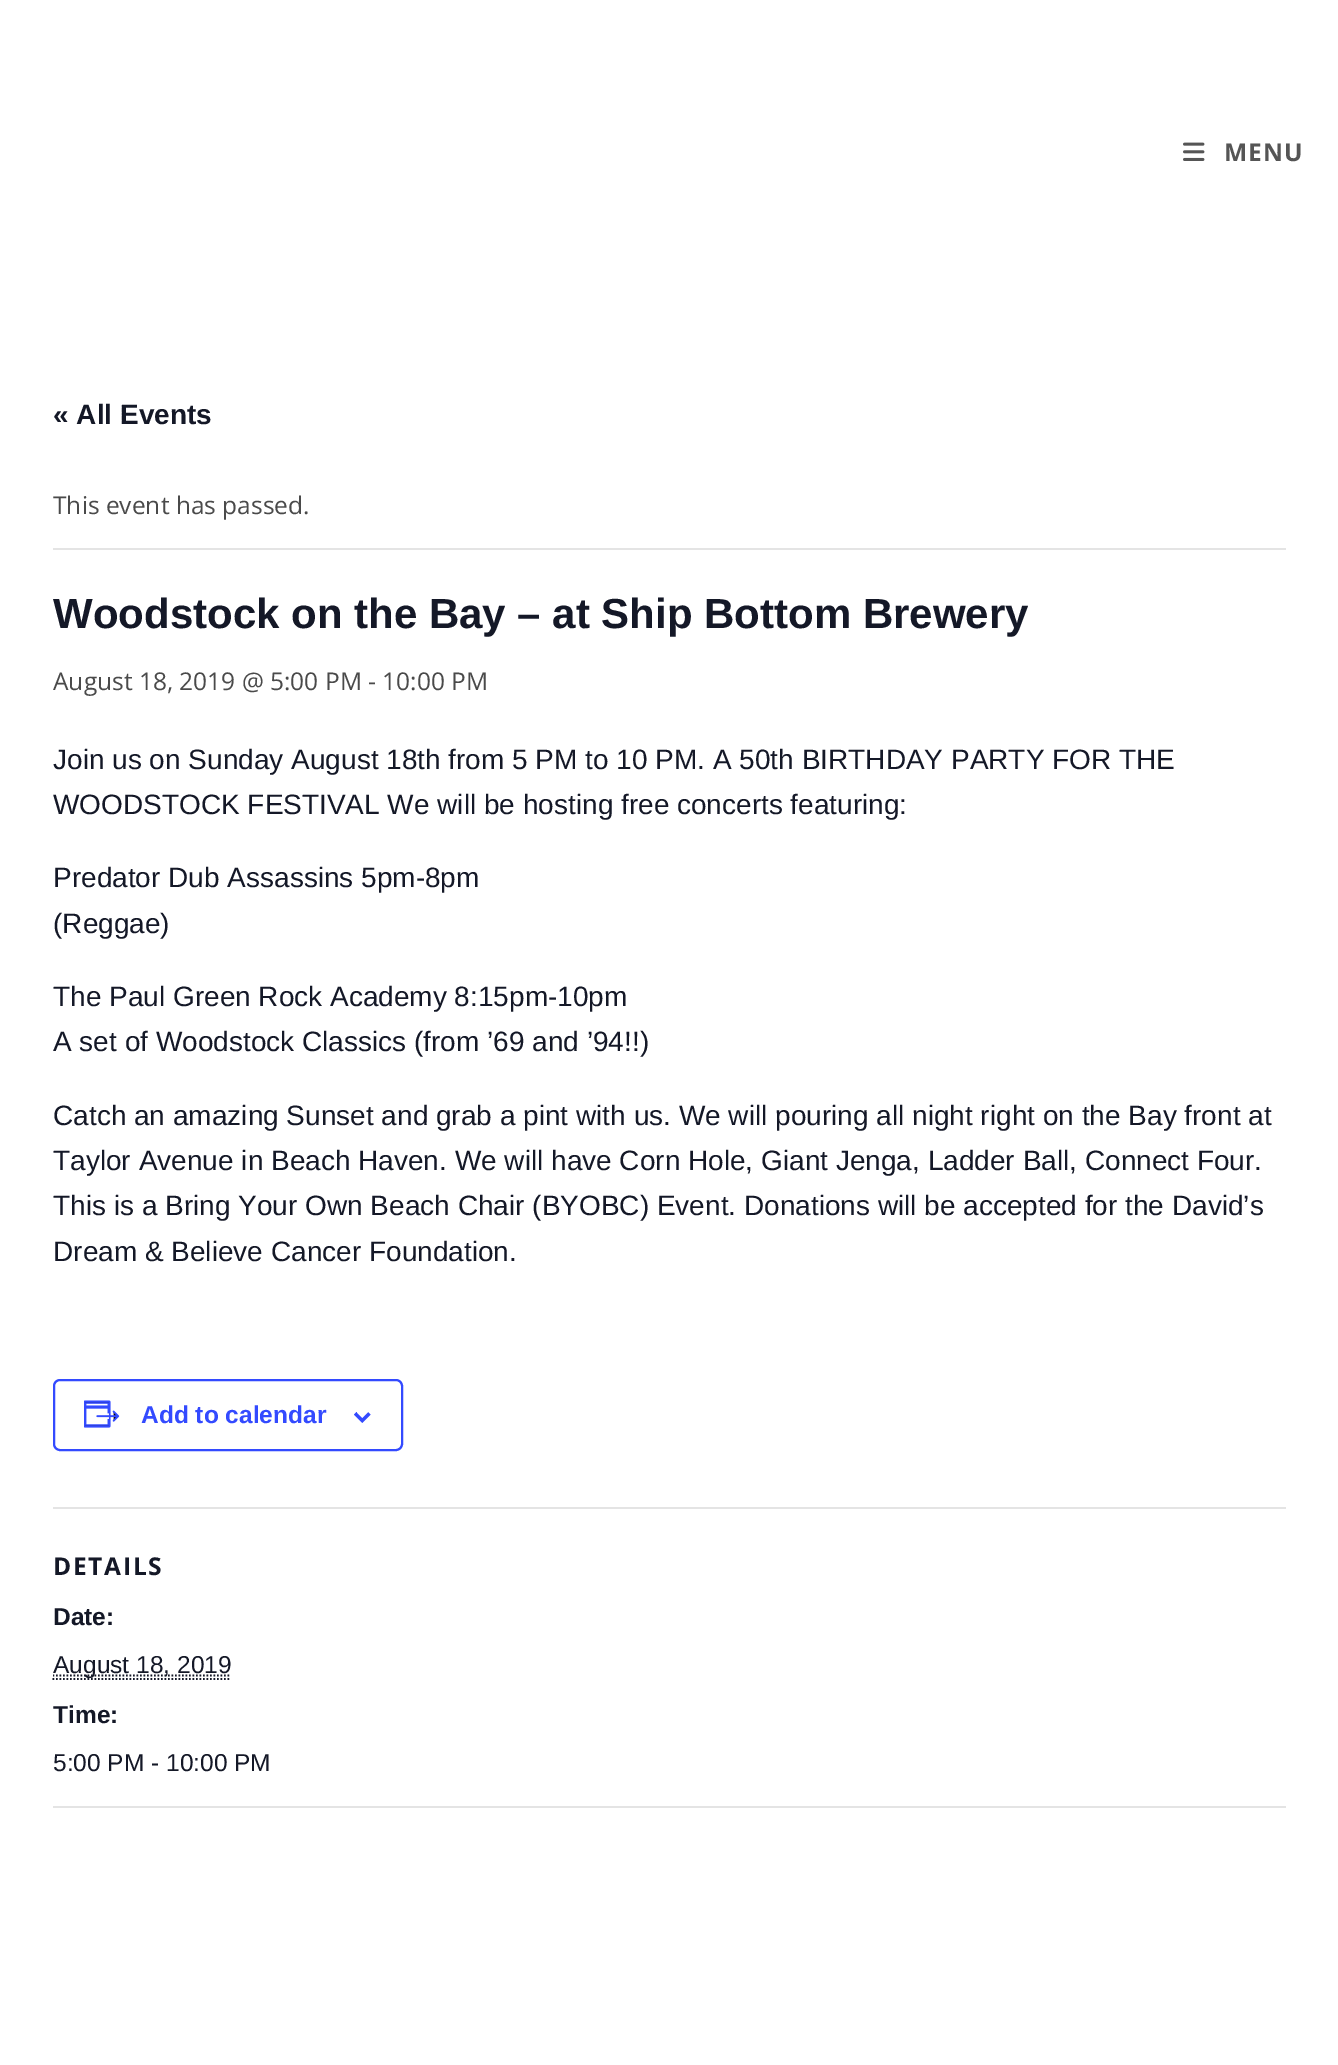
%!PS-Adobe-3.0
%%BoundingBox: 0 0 1338 2065
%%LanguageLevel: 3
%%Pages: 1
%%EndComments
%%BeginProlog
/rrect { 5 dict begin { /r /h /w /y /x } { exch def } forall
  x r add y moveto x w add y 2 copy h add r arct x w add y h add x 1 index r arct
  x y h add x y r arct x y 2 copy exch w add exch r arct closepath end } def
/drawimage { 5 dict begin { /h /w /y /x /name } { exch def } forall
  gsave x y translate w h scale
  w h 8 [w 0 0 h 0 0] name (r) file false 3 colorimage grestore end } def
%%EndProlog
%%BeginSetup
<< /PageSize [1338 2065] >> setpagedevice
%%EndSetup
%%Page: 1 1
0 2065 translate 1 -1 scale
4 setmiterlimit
1 setgray
0 0 1338 2065 rectfill
(images/1.raw) 1183 142 22 19 drawimage
0.894 setgray
53 548 1233 2 rectfill
0.2 0.29 1 setrgbcolor
2 setlinewidth
54 1380 348 70 6 rrect stroke
(images/2.raw) 84 1400 36 28 drawimage
(images/3.raw) 354 1412 17 11 drawimage
0.894 setgray
53 1507 1233 2 rectfill
0.078 0.094 0.153 setrgbcolor
1.8 setlinewidth
[1.75 1.75] 0 setdash
newpath 52.5 1679 moveto 231 1679 lineto stroke
gsave
53 737 1233 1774 rectclip
newpath 52.5 1675.5 moveto 231 1675.5 lineto stroke
grestore
0.894 setgray
53 1806 1233 2 rectfill
/OpenSans-Bold [24.5 0 0 -24.5 0 0] selectfont
0.333 setgray
1224 161 moveto 1 0 (MENU) ashow
/LiberationSans-Bold [28 0 0 -28 0 0] selectfont
0.078 0.094 0.153 setrgbcolor
53 424 moveto (« All Events) show
/OpenSans-Regular [24.5 0 0 -24.5 0 0] selectfont
0.29 setgray
53 514 moveto (This event has passed.) show
/LiberationSans-Bold [42 0 0 -42 0 0] selectfont
0.078 0.094 0.153 setrgbcolor
53 628 moveto (Woodstock on the Bay – at Ship Bottom Brewery) show
/OpenSans-Regular [24.5 0 0 -24.5 0 0] selectfont
0.29 setgray
53 690 moveto (August 18, 2019 @ 5:00 PM - 10:00 PM) show
/LiberationSans-Regular [28 0 0 -28 0 0] selectfont
0.078 0.094 0.153 setrgbcolor
53 769 moveto (Join us on Sunday August 18th from 5 PM to 10 PM. A 50th BIRTHDAY PARTY FOR THE) show
53 814 moveto (WOODSTOCK FESTIVAL We will be hosting free concerts featuring:) show
53 887 moveto (Predator Dub Assassins 5pm-8pm) show
53 933 moveto (\(Reggae\)) show
53 1006 moveto (The Paul Green Rock Academy 8:15pm-10pm) show
53 1051 moveto (A set of Woodstock Classics \(from ’69 and ’94!!\)) show
53 1125 moveto (Catch an amazing Sunset and grab a pint with us. We will pouring all night right on the Bay front at) show
53 1170 moveto (Taylor Avenue in Beach Haven. We will have Corn Hole, Giant Jenga, Ladder Ball, Connect Four.) show
53 1215 moveto (This is a Bring Your Own Beach Chair \(BYOBC\) Event. Donations will be accepted for the David’s) show
53 1261 moveto (Dream & Believe Cancer Foundation.) show
/LiberationSans-Bold [24.5 0 0 -24.5 0 0] selectfont
0.2 0.29 1 setrgbcolor
141 1423 moveto (Add to calendar) show
/OpenSans-Bold [24.5 0 0 -24.5 0 0] selectfont
0.078 0.094 0.153 setrgbcolor
53 1575 moveto 1.75 0 (DETAILS) ashow
/LiberationSans-Bold [24.5 0 0 -24.5 0 0] selectfont
53 1625 moveto (Date:) show
/LiberationSans-Regular [24.5 0 0 -24.5 0 0] selectfont
53 1673 moveto (August 18, 2019) show
gsave
53 737 1233 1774 rectclip
/LiberationSans-Bold [24.5 0 0 -24.5 0 0] selectfont
53 1723 moveto (Time:) show
grestore
53 1771 moveto (5:00 PM - 10:00 PM) show
showpage
%%EOF
